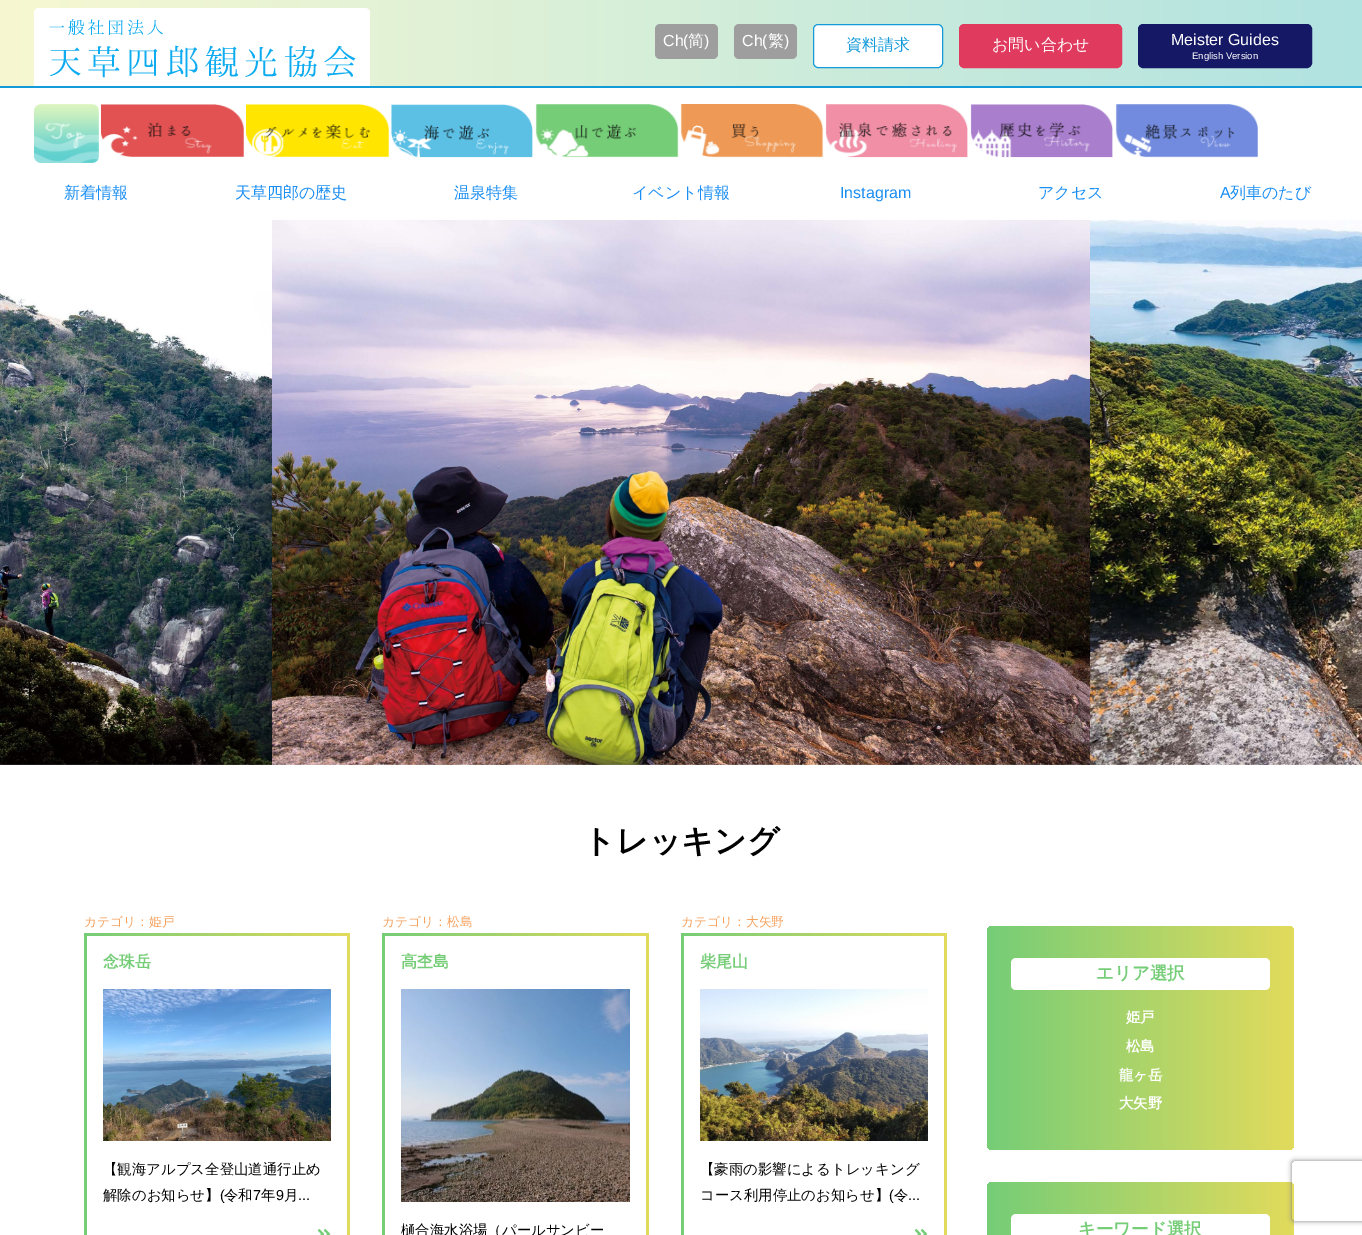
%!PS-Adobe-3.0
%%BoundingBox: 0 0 1362 1235
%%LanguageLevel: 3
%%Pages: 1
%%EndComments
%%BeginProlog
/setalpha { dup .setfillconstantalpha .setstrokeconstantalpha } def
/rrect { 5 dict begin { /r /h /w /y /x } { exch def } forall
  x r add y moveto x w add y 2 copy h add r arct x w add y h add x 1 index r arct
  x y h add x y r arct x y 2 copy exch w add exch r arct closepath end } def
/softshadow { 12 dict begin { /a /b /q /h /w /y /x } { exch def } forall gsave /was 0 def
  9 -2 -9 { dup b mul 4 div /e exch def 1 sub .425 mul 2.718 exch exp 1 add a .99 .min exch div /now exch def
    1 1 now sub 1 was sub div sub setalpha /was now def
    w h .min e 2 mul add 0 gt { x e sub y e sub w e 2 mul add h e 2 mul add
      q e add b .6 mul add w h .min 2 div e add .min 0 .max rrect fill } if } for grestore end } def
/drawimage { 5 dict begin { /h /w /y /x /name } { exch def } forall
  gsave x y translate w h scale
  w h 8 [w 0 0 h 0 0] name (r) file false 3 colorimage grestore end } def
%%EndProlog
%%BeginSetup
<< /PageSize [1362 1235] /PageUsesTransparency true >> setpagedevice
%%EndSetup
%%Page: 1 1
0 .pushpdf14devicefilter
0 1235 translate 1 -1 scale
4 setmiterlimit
1 setgray
0 0 1362 1235 rectfill
gsave newpath 0 0 moveto 1362 0 lineto 1362 86 lineto 0 86 lineto closepath clip newpath
<< /ShadingType 2 /ColorSpace /DeviceRGB /Coords [0 43 1362 43] /Extend [true true] /Function << /FunctionType 2 /Domain [0 1] /C0 [0.969 0.973 0.82] /C1 [0.694 0.89 0.882] /N 1 >> >> shfill grestore
newpath 39 8 moveto 365 8 lineto 368 8 370 10 370 13 curveto 370 93 lineto 34 93 lineto 34 13 lineto 34 10 36 8 39 8 curveto closepath fill
(images/1.raw) 49 19 307 59 drawimage
0.62 setgray
655 24 63 35 5 rrect fill
734 24 63 35 5 rrect fill
1 setgray
813.5 24.5 129 43 4.5 rrect gsave fill grestore
0.075 0.604 0.847 setrgbcolor
stroke
0.878 0.231 0.369 setrgbcolor
959.5 24.5 162 43 4.5 rrect gsave fill grestore
stroke
0.082 0.098 0.396 setrgbcolor
1138.5 24.5 173 43 4.5 rrect gsave fill grestore
stroke
0.075 0.604 0.847 setrgbcolor
0 86 1362 2 rectfill
(images/2.raw) 34 104 65 59 drawimage
(images/3.raw) 101 104 143 53 drawimage
(images/4.raw) 246 104 143 53 drawimage
(images/5.raw) 391 104 142 54 drawimage
(images/6.raw) 535 104 144 54 drawimage
(images/7.raw) 680 104 144 54 drawimage
(images/8.raw) 825 104 143 54 drawimage
(images/9.raw) 970 104 143 54 drawimage
(images/10.raw) 1115 104 143 54 drawimage
(images/11.raw) 0 292 272 473 drawimage
(images/12.raw) 272 220 818 545 drawimage
(images/13.raw) 1090 220 272 545 drawimage
gsave newpath 84 933 moveto 350 933 lineto 350 1235 lineto 84 1235 lineto closepath clip newpath
<< /ShadingType 2 /ColorSpace /DeviceRGB /Coords [84 1155 350 1155] /Extend [true true] /Function << /FunctionType 2 /Domain [0 1] /C0 [0.459 0.804 0.467] /C1 [0.886 0.859 0.361] /N 1 >> >> shfill grestore
1 setgray
87 936 260 299 rectfill
(images/14.raw) 103 989 228 152 drawimage
(images/15.raw) 317 1229 14 6 drawimage
gsave newpath 382 933 moveto 649 933 lineto 649 1235 lineto 382 1235 lineto closepath clip newpath
<< /ShadingType 2 /ColorSpace /DeviceRGB /Coords [382 1155 649 1155] /Extend [true true] /Function << /FunctionType 2 /Domain [0 1] /C0 [0.459 0.804 0.467] /C1 [0.886 0.859 0.361] /N 1 >> >> shfill grestore
385 936 261 299 rectfill
(images/16.raw) 401 989 229 213 drawimage
gsave newpath 681 933 moveto 947 933 lineto 947 1235 lineto 681 1235 lineto closepath clip newpath
<< /ShadingType 2 /ColorSpace /DeviceRGB /Coords [681 1155 947 1155] /Extend [true true] /Function << /FunctionType 2 /Domain [0 1] /C0 [0.459 0.804 0.467] /C1 [0.886 0.859 0.361] /N 1 >> >> shfill grestore
684 936 260 299 rectfill
(images/17.raw) 700 989 228 152 drawimage
(images/15.raw) 914 1229 14 6 drawimage
gsave 987 926 307 224 5 rrect clip newpath
<< /ShadingType 2 /ColorSpace /DeviceRGB /Coords [987 1038 1294 1038] /Extend [true true] /Function << /FunctionType 2 /Domain [0 1] /C0 [0.459 0.804 0.467] /C1 [0.886 0.859 0.361] /N 1 >> >> shfill grestore
1011 958 259 32 5 rrect fill
gsave 987 1182 307 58 5 rrect clip newpath
<< /ShadingType 2 /ColorSpace /DeviceRGB /Coords [987 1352 1294 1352] /Extend [true true] /Function << /FunctionType 2 /Domain [0 1] /C0 [0.459 0.804 0.467] /C1 [0.886 0.859 0.361] /N 1 >> >> shfill grestore
1011 1214 259 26 5 rrect fill
gsave
newpath 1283 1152 moveto 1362 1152 lineto 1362 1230 lineto 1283 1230 lineto closepath 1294 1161 moveto 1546 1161 lineto 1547 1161 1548 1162 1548 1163 curveto 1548 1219 lineto 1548 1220 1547 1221 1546 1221 curveto 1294 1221 lineto 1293 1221 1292 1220 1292 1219 curveto 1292 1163 lineto 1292 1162 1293 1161 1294 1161 curveto closepath eoclip newpath
0.502 setgray
1292 1161 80 60 2 2.5 1 softshadow
grestore
/LiberationSans-Regular [16 0 0 -16 0 0] selectfont
663 46 moveto (Ch\() show
/WenQuanYiZenHei-Medium [16 0 0 -16 0 0] selectfont
688 46 moveto (简) show
/LiberationSans-Regular [16 0 0 -16 0 0] selectfont
704 46 moveto (\)) show
742 46 moveto (Ch\() show
/WenQuanYiZenHei-Medium [16 0 0 -16 0 0] selectfont
768 46 moveto (繁) show
/LiberationSans-Regular [16 0 0 -16 0 0] selectfont
784 46 moveto (\)) show
/WenQuanYiZenHei-Medium [16 0 0 -16 0 0] selectfont
0.075 0.604 0.847 setrgbcolor
846 50 moveto (資料請求) show
1 setgray
992 50 moveto (お問い合わせ) show
/LiberationSans-Regular [16 0 0 -16 0 0] selectfont
1171 45 moveto (Meister Guides) show
/LiberationSans-Regular [9.5 0 0 -9.5 0 0] selectfont
1192 59 moveto (English Version) show
/WenQuanYiZenHei-Medium [16 0 0 -16 0 0] selectfont
0.106 0.557 0.949 setrgbcolor
64 198 moveto (新着情報) show
235 198 moveto (天草四郎の歴史) show
454 198 moveto (温泉特集) show
632 198 moveto (イベント情報) show
/LiberationSans-Regular [16 0 0 -16 0 0] selectfont
840 198 moveto (Instagram) show
/WenQuanYiZenHei-Medium [16 0 0 -16 0 0] selectfont
1038 198 moveto (アクセス) show
/LiberationSans-Regular [16 0 0 -16 0 0] selectfont
1220 198 moveto (A) show
/WenQuanYiZenHei-Medium [16 0 0 -16 0 0] selectfont
1230 198 moveto (列車のたび) show
/WenQuanYiZenHei-Bold [32 0 0 -32 0 0] selectfont
0 setgray
583 852 moveto (トレッキング) show
/WenQuanYiZenHei-Medium [12.75 0 0 -12.75 0 0] selectfont
0.961 0.627 0.357 setrgbcolor
84 926 moveto (カテゴリ：姫戸) show
/WenQuanYiZenHei-Bold [16 0 0 -16 0 0] selectfont
0.459 0.804 0.467 setrgbcolor
103 967 moveto (念珠岳) show
/WenQuanYiZenHei-Medium [14.4 0 0 -14.4 0 0] selectfont
0 setgray
103 1174 moveto (【観海アルプス全登山道通行止め) show
103 1200 moveto (解除のお知らせ】) show
/LiberationSans-Regular [14.4 0 0 -14.4 0 0] selectfont
220 1200 moveto (\() show
/WenQuanYiZenHei-Medium [14.4 0 0 -14.4 0 0] selectfont
224 1200 moveto (令和) show
/LiberationSans-Regular [14.4 0 0 -14.4 0 0] selectfont
253 1200 moveto (7) show
/WenQuanYiZenHei-Medium [14.4 0 0 -14.4 0 0] selectfont
261 1200 moveto (年) show
/LiberationSans-Regular [14.4 0 0 -14.4 0 0] selectfont
276 1200 moveto (9) show
/WenQuanYiZenHei-Medium [14.4 0 0 -14.4 0 0] selectfont
284 1200 moveto (月) show
/LiberationSans-Regular [14.4 0 0 -14.4 0 0] selectfont
298 1200 moveto (...) show
/WenQuanYiZenHei-Medium [12.75 0 0 -12.75 0 0] selectfont
0.961 0.627 0.357 setrgbcolor
382 926 moveto (カテゴリ：松島) show
/WenQuanYiZenHei-Bold [16 0 0 -16 0 0] selectfont
0.459 0.804 0.467 setrgbcolor
401 967 moveto (高杢島) show
/WenQuanYiZenHei-Medium [14.4 0 0 -14.4 0 0] selectfont
0 setgray
401 1235 moveto (樋合海水浴場（パールサンビー) show
/WenQuanYiZenHei-Medium [12.75 0 0 -12.75 0 0] selectfont
0.961 0.627 0.357 setrgbcolor
681 926 moveto (カテゴリ：大矢野) show
/WenQuanYiZenHei-Bold [16 0 0 -16 0 0] selectfont
0.459 0.804 0.467 setrgbcolor
700 967 moveto (柴尾山) show
/WenQuanYiZenHei-Medium [14.4 0 0 -14.4 0 0] selectfont
0 setgray
700 1174 moveto (【豪雨の影響によるトレッキング) show
700 1200 moveto (コース利用停止のお知らせ】) show
/LiberationSans-Regular [14.4 0 0 -14.4 0 0] selectfont
889 1200 moveto (\() show
/WenQuanYiZenHei-Medium [14.4 0 0 -14.4 0 0] selectfont
894 1200 moveto (令) show
/LiberationSans-Regular [14.4 0 0 -14.4 0 0] selectfont
908 1200 moveto (...) show
/WenQuanYiZenHei-Bold [17.5 0 0 -17.5 0 0] selectfont
0.459 0.804 0.467 setrgbcolor
1096 979 moveto (エリア選択) show
/WenQuanYiZenHei-Bold [14.4 0 0 -14.4 0 0] selectfont
1 setgray
1126 1022 moveto (姫戸) show
1126 1051 moveto (松島) show
1119 1080 moveto (龍ヶ岳) show
1119 1108 moveto (大矢野) show
/WenQuanYiZenHei-Bold [17.5 0 0 -17.5 0 0] selectfont
0.459 0.804 0.467 setrgbcolor
1078 1235 moveto (キーワード選択) show
.poppdf14devicefilter showpage
%%EOF
